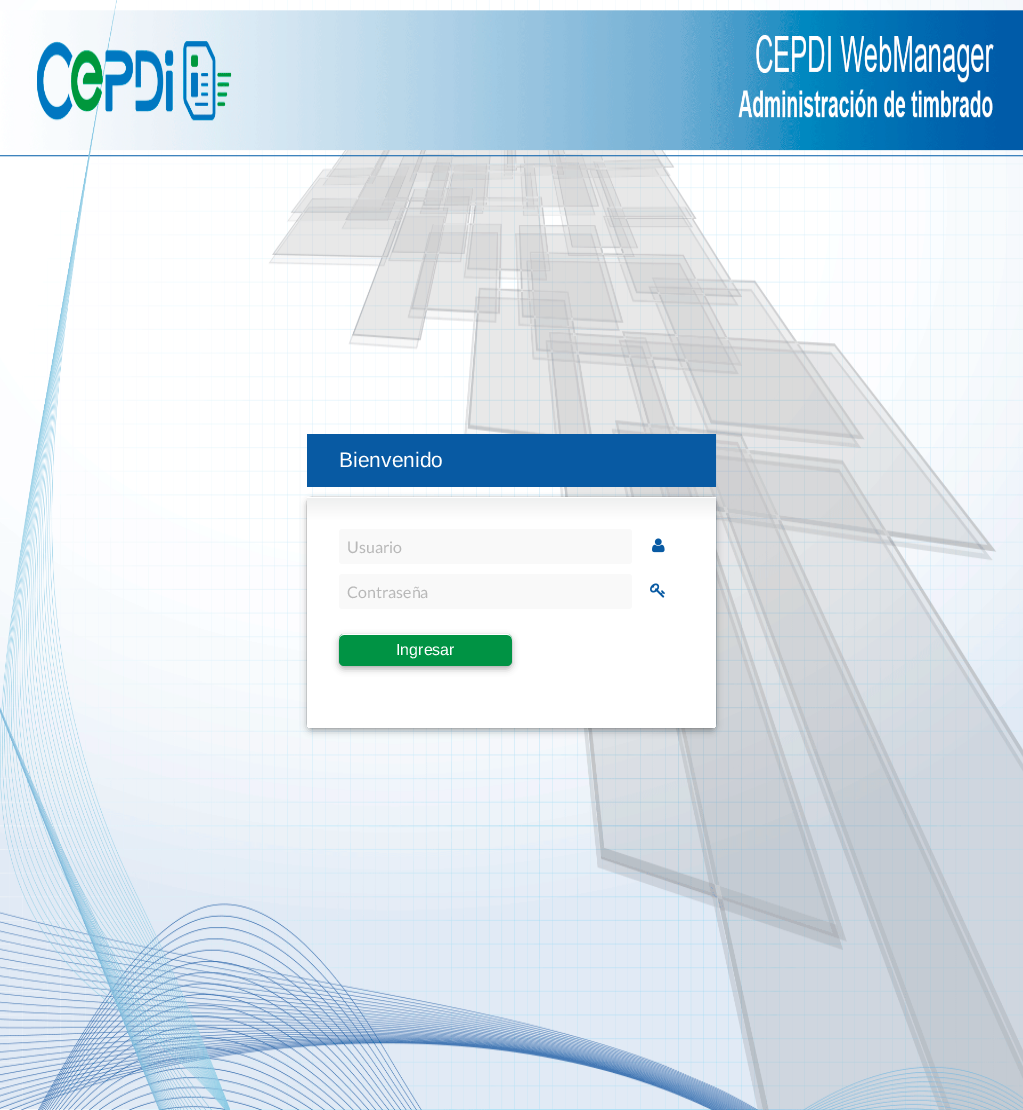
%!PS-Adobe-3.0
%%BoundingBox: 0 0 1023 1110
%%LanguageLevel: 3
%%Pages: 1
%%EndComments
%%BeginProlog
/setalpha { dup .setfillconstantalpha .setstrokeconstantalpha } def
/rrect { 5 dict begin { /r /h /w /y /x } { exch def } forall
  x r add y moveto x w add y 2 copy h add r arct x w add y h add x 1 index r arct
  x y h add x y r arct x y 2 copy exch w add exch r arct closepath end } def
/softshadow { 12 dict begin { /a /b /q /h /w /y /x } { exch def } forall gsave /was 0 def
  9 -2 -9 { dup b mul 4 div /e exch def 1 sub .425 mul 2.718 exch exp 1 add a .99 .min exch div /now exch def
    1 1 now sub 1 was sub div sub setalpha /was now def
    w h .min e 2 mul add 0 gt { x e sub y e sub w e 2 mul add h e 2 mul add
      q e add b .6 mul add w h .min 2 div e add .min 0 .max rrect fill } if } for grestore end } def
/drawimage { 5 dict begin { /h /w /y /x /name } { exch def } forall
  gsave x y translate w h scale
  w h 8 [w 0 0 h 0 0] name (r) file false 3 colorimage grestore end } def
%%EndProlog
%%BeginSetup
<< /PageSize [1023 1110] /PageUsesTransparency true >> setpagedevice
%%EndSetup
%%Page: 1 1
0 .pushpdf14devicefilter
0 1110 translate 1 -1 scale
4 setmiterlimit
1 setgray
0 0 1023 1110 rectfill
(images/1.raw) 0 0 1023 1110 drawimage
0.031 0.353 0.639 setrgbcolor
307 434 409 53 rectfill
0 setgray
307 500 409 231 5 3.5 0.3 softshadow
307 497 409 231 5 0.5 0.3 softshadow
gsave newpath 307 497 moveto 716 497 lineto 716 723 lineto 716 726 714 728 711 728 curveto 312 728 lineto 309 728 307 726 307 723 curveto closepath clip newpath
<< /ShadingType 2 /ColorSpace /DeviceRGB /Coords [512 497 512 728] /Extend [true true] /Function << /FunctionType 3 /Domain [0 1] /Functions [<< /FunctionType 2 /Domain [0 1] /C0 [0.933 0.937 0.937] /C1 [1 1 1] /N 1 >> << /FunctionType 2 /Domain [0 1] /C0 [1 1 1] /C1 [1 1 1] /N 1 >>] /Bounds [0.1] /Encode [0 1 0 1] >> >> shfill grestore
1 setgray
307 497 409 1 rectfill
0.976 setgray
339 529 293 35 3 rrect fill
(images/2.raw) 652 538 13 15 drawimage
339 574 293 35 3 rrect fill
(images/3.raw) 650 583 15 15 drawimage
0 setgray
339 637 173 32 5 3.5 0.3 softshadow
339 634 173 32 5 0.5 0.1 softshadow
0 0.576 0.267 setrgbcolor
339 634 173 32 5 rrect fill
1 setgray
newpath 344 635 moveto 507 635 lineto 510 635 512 637 512 640 curveto 512 637 511 635 508 634 curveto 344 634 lineto 341 634 339 637 339 640 curveto 339 637 341 635 344 635 curveto closepath fill
/LiberationSans-Regular [21 0 0 -21 0 0] selectfont
339 467 moveto (Bienvenido) show
/Lato-Regular [16 0 0 -16 0 0] selectfont
0.722 setgray
347 553 moveto (Usuario) show
347 598 moveto (Contraseña) show
/LiberationSans-Regular [16 0 0 -16 0 0] selectfont
1 setgray
396 655 moveto (Ingresar) show
.poppdf14devicefilter showpage
%%EOF
